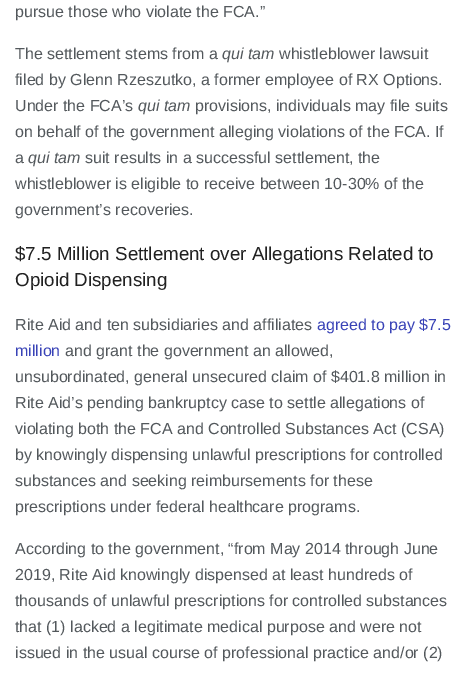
%!PS-Adobe-3.0
%%BoundingBox: 0 0 466 673
%%LanguageLevel: 3
%%Pages: 1
%%EndComments
%%BeginProlog
%%EndProlog
%%BeginSetup
<< /PageSize [466 673] >> setpagedevice
%%EndSetup
%%Page: 1 1
0 673 translate 1 -1 scale
4 setmiterlimit
1 setgray
0 0 466 673 rectfill
/LiberationSans-Regular [16 0 0 -16 0 0] selectfont
0.325 0.345 0.361 setrgbcolor
15 17 moveto (pursue those who violate the FCA.”) show
15 59 moveto (The settlement stems from a) show
/LiberationSans-Italic [16 0 0 -16 0 0] selectfont
222 59 moveto (qui tam) show
/LiberationSans-Regular [16 0 0 -16 0 0] selectfont
279 59 moveto (whistleblower lawsuit) show
15 85 moveto (filed by Glenn Rzeszutko, a former employee of RX Options.) show
15 111 moveto (Under the FCA’s) show
/LiberationSans-Italic [16 0 0 -16 0 0] selectfont
138 111 moveto (qui tam) show
/LiberationSans-Regular [16 0 0 -16 0 0] selectfont
195 111 moveto (provisions, individuals may file suits) show
15 137 moveto (on behalf of the government alleging violations of the FCA. If) show
15 163 moveto (a) show
/LiberationSans-Italic [16 0 0 -16 0 0] selectfont
28 163 moveto (qui tam) show
/LiberationSans-Regular [16 0 0 -16 0 0] selectfont
85 163 moveto (suit results in a successful settlement, the) show
15 189 moveto (whistleblower is eligible to receive between 10-30% of the) show
15 215 moveto (government’s recoveries.) show
/LiberationSans-Regular [18.75 0 0 -18.75 0 0] selectfont
0.129 setgray
15 260 moveto ($7.5 Million Settlement over Allegations Related to) show
15 286 moveto (Opioid Dispensing) show
/LiberationSans-Regular [16 0 0 -16 0 0] selectfont
0.325 0.345 0.361 setrgbcolor
15 330 moveto (Rite Aid and ten subsidiaries and affiliates) show
0.224 0.263 0.718 setrgbcolor
317 330 moveto (agreed to pay $7.5) show
15 356 moveto (million) show
0.325 0.345 0.361 setrgbcolor
65 356 moveto (and grant the government an allowed,) show
15 382 moveto (unsubordinated, general unsecured claim of $401.8 million in) show
15 408 moveto (Rite Aid’s pending bankruptcy case to settle allegations of) show
15 434 moveto (violating both the FCA and Controlled Substances Act \(CSA\)) show
15 460 moveto (by knowingly dispensing unlawful prescriptions for controlled) show
15 486 moveto (substances and seeking reimbursements for these) show
15 512 moveto (prescriptions under federal healthcare programs.) show
15 554 moveto (According to the government, “from May 2014 through June) show
15 580 moveto (2019, Rite Aid knowingly dispensed at least hundreds of) show
15 606 moveto (thousands of unlawful prescriptions for controlled substances) show
15 632 moveto (that \(1\) lacked a legitimate medical purpose and were not) show
15 658 moveto (issued in the usual course of professional practice and/or \(2\)) show
showpage
%%EOF
